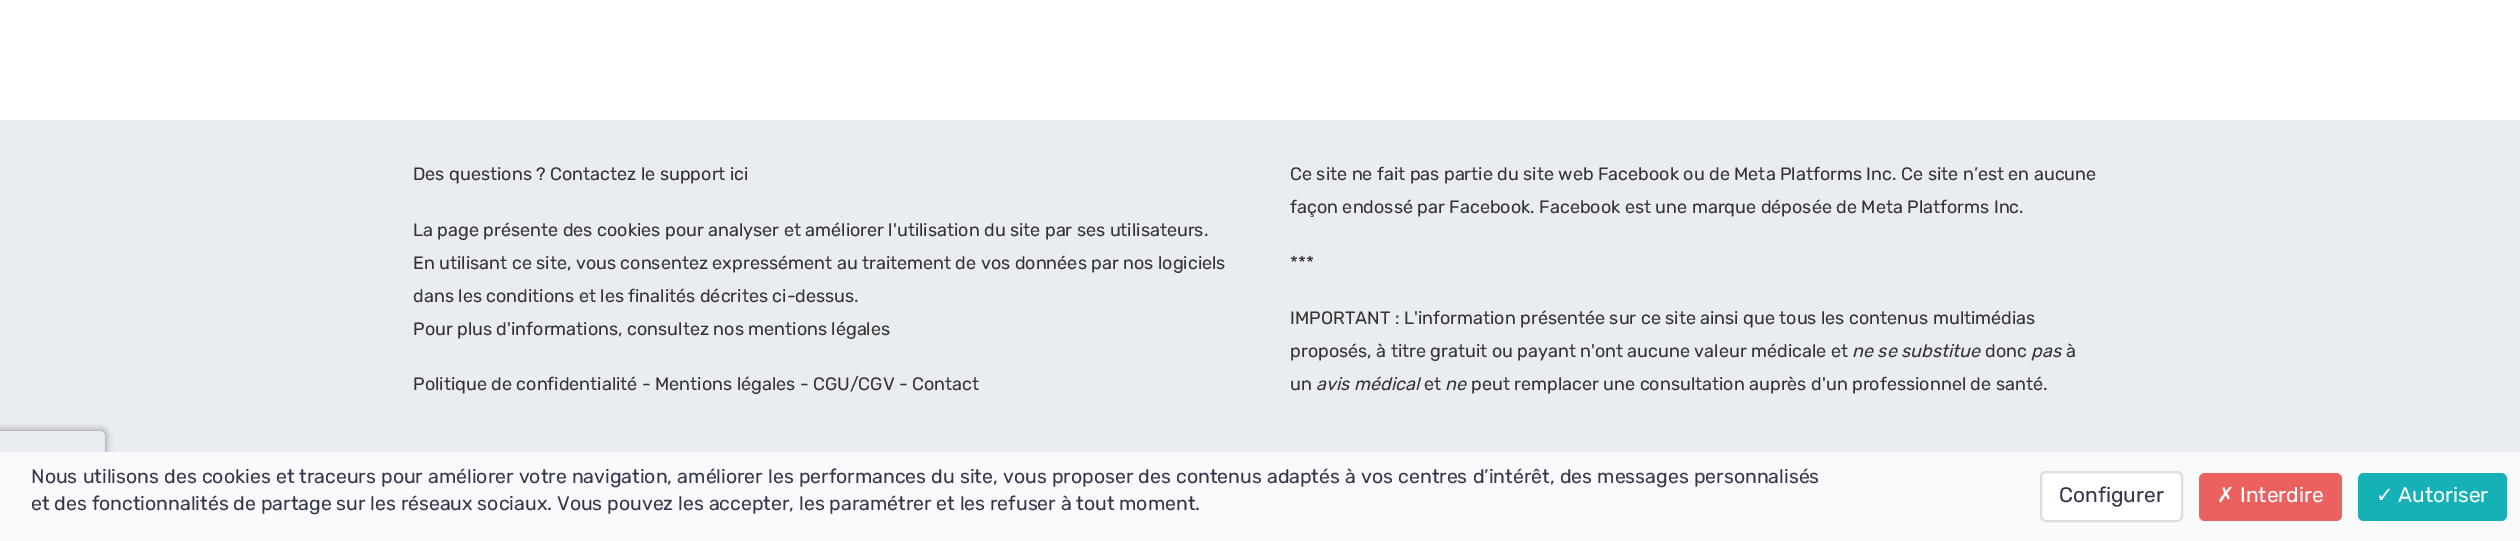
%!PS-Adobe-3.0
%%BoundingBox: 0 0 2520 541
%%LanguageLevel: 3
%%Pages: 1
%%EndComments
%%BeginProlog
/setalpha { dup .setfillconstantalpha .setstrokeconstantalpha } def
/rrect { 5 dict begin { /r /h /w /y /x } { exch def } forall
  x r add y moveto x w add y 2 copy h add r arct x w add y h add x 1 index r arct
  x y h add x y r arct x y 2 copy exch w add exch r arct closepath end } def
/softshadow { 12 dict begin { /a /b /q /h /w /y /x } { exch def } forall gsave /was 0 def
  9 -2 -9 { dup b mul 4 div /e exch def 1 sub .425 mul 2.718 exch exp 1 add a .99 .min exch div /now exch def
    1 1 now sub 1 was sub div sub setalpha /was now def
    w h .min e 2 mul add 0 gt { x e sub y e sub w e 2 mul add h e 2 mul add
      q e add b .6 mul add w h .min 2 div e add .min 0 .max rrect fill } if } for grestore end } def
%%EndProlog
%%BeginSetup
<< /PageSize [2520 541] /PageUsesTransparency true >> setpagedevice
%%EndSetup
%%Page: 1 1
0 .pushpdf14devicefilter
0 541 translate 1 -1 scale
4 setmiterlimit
0.914 0.929 0.945 setrgbcolor
0 0 2520 541 rectfill
1 setgray
0 0 2520 120 rectfill
gsave
newpath 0 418 moveto 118 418 lineto 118 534 lineto 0 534 lineto closepath -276 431 moveto 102 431 lineto 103.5 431 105 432.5 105 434 curveto 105 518 lineto 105 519.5 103.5 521 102 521 curveto -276 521 lineto -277.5 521 -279 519.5 -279 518 curveto -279 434 lineto -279 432.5 -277.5 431 -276 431 curveto closepath eoclip newpath
0.502 setgray
-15 431 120 90 3 4 1 softshadow
grestore
0.976 0.98 0.984 setrgbcolor
0 452 2520 89 rectfill
1 setgray
2041 472 141 49 5 rrect gsave fill grestore
0.867 0.867 0.882 setrgbcolor
2 setlinewidth
stroke
0.922 0.38 0.373 setrgbcolor
2199 473 143 48 6 rrect fill
0.082 0.694 0.714 setrgbcolor
2358 473 149 48 6 rrect fill
/Rubik-Regular [18 0 0 -18 0 0] selectfont
0.2 setgray
413 180 moveto (Des questions ? Contactez le support ici) show
413 236 moveto (La page présente des cookies pour analyser et améliorer l'utilisation du site par ses utilisateurs.) show
413 269 moveto (En utilisant ce site, vous consentez expressément au traitement de vos données par nos logiciels) show
413 302 moveto (dans les conditions et les finalités décrites ci-dessus.) show
413 335 moveto (Pour plus d'informations, consultez nos mentions légales) show
413 390 moveto (Politique de confidentialité - Mentions légales - CGU/CGV - Contact) show
1290 180 moveto (Ce site ne fait pas partie du site web Facebook ou de Meta Platforms Inc. Ce site n’est en aucune) show
1290 213 moveto (façon endossé par Facebook. Facebook est une marque déposée de Meta Platforms Inc.) show
1290 269 moveto (***) show
1290 324 moveto (IMPORTANT : L'information présentée sur ce site ainsi que tous les contenus multimédias) show
1290 357 moveto (proposés, à titre gratuit ou payant n'ont aucune valeur médicale et) show
/Rubik-Italic [18 0 0 -18 0 0] selectfont
1852 357 moveto (ne se substitue) show
/Rubik-Regular [18 0 0 -18 0 0] selectfont
1985 357 moveto (donc) show
/Rubik-Italic [18 0 0 -18 0 0] selectfont
2031 357 moveto (pas) show
/Rubik-Regular [18 0 0 -18 0 0] selectfont
2066 357 moveto (à) show
1290 390 moveto (un) show
/Rubik-Italic [18 0 0 -18 0 0] selectfont
1316 390 moveto (avis médical) show
/Rubik-Regular [18 0 0 -18 0 0] selectfont
1424 390 moveto (et) show
/Rubik-Italic [18 0 0 -18 0 0] selectfont
1445 390 moveto (ne) show
/Rubik-Regular [18 0 0 -18 0 0] selectfont
1471 390 moveto (peut remplacer une consultation auprès d'un professionnel de santé.) show
/Rubik-Regular [19.5 0 0 -19.5 0 0] selectfont
0.204 0.212 0.294 setrgbcolor
31 483 moveto 0.35 0 32 (Nous utilisons des cookies et traceurs pour améliorer votre navigation, améliorer les performances du site, vous proposer des contenus adaptés à vos centres d’intérêt, des messages personnalisés) widthshow
31 510 moveto (et des fonctionnalités de partage sur les réseaux sociaux. Vous pouvez les accepter, les paramétrer et les refuser à tout moment.) show
/Rubik-Regular [21 0 0 -21 0 0] selectfont
2059 502 moveto (Configurer) show
/DejaVuSans-Regular [21 0 0 -21 0 0] selectfont
1 setgray
2217 502 moveto (✗) show
/Rubik-Regular [21 0 0 -21 0 0] selectfont
2240 502 moveto (Interdire) show
/DejaVuSans-Regular [21 0 0 -21 0 0] selectfont
2376 502 moveto (✓) show
/Rubik-Regular [21 0 0 -21 0 0] selectfont
2398 502 moveto (Autoriser) show
.poppdf14devicefilter showpage
%%EOF
